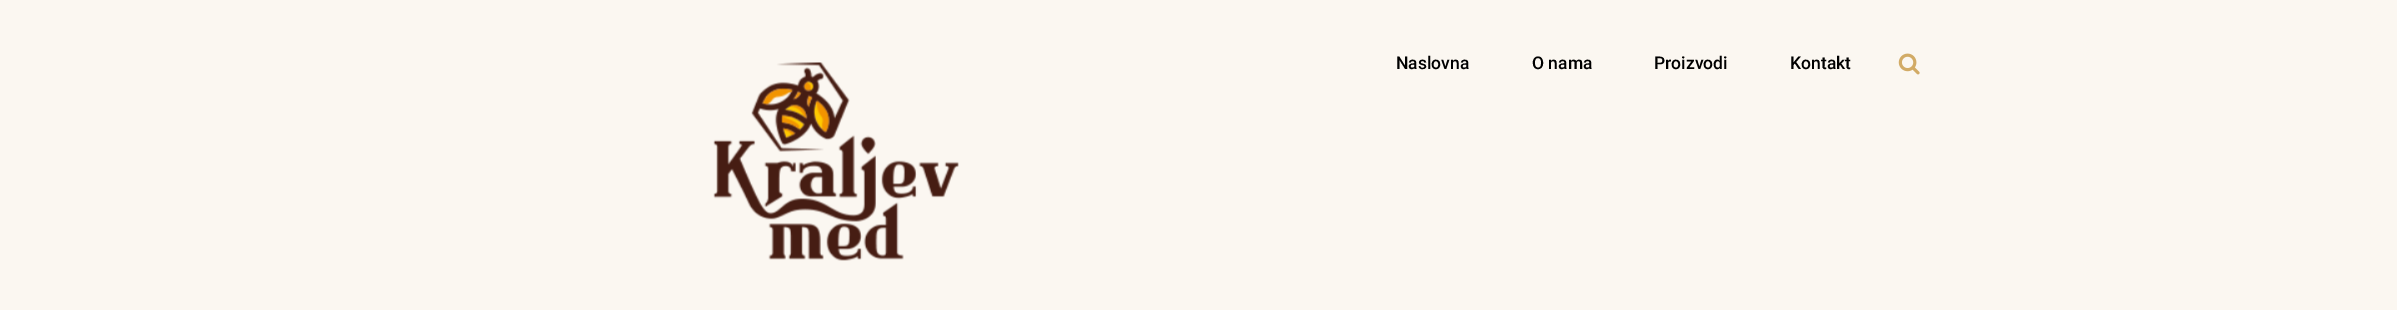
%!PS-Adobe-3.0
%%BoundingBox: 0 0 2397 316
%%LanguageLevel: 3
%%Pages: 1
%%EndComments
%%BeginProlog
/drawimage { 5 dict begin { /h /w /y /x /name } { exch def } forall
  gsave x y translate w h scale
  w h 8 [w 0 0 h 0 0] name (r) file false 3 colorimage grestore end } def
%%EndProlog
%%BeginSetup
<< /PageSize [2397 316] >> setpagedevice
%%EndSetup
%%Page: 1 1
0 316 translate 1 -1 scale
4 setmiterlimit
1 setgray
0 0 2397 316 rectfill
0.984 0.969 0.945 setrgbcolor
0 0 2397 310 rectfill
(images/1.raw) 713 62 246 199 drawimage
(images/2.raw) 1898 53 22 22 drawimage
/Roboto-Medium [17.5 0 0 -17.5 0 0] selectfont
0 setgray
1396 69 moveto (Naslovna) show
1532 69 moveto (O nama) show
1654 69 moveto (Proizvodi) show
1790 69 moveto (Kontakt) show
showpage
%%EOF
